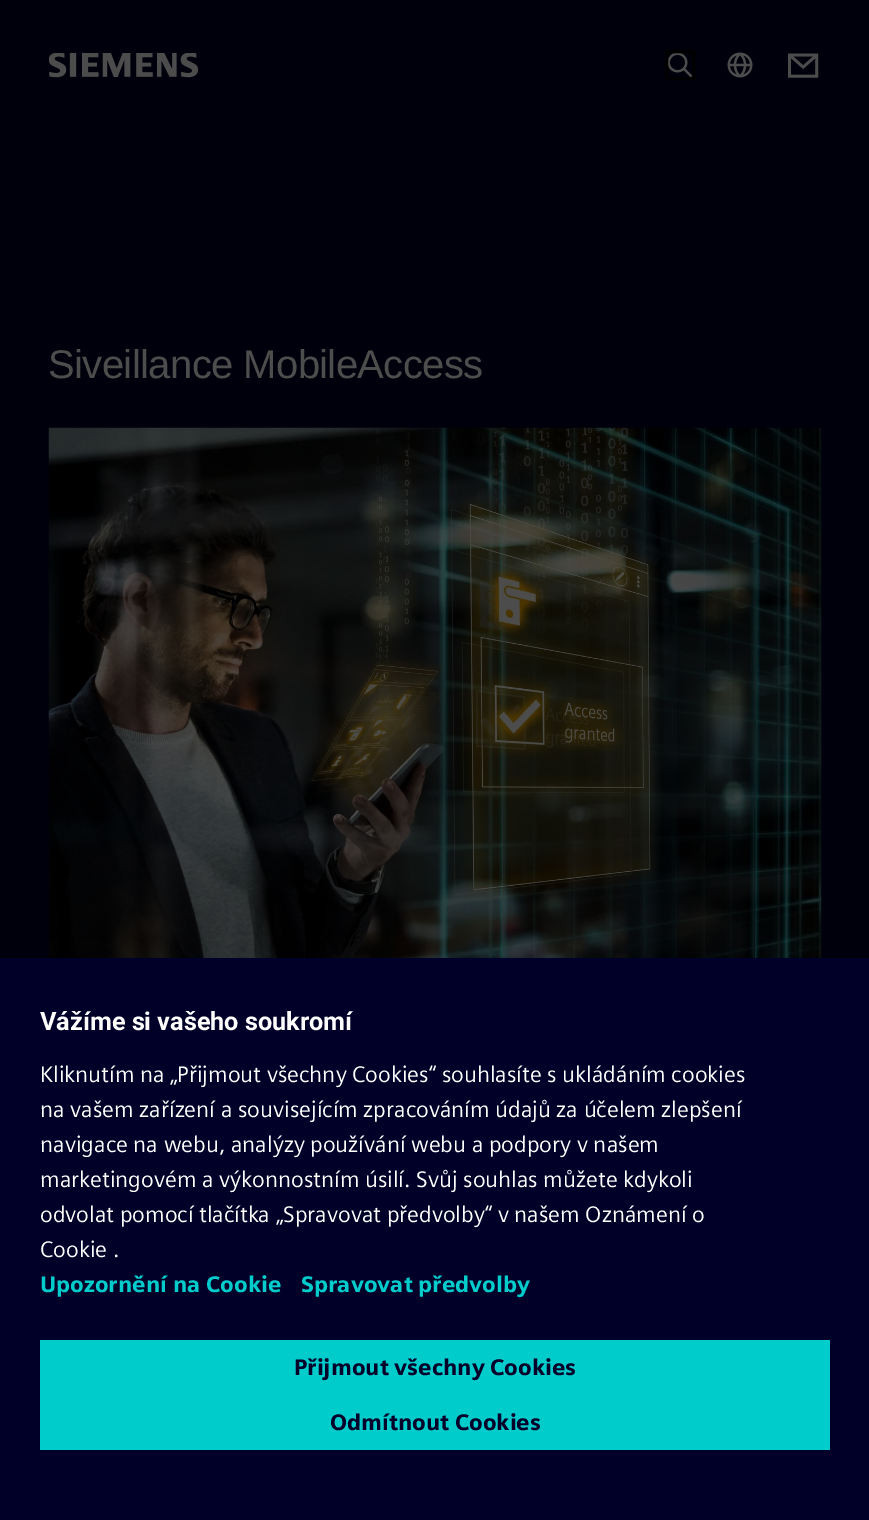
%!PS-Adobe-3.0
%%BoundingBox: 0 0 869 1520
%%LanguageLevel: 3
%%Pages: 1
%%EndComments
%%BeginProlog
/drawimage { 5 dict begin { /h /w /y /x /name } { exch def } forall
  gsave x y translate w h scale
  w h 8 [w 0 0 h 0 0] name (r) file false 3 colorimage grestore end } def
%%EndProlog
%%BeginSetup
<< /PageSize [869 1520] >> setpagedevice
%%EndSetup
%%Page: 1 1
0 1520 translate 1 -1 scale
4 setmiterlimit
0 0 0.047 setrgbcolor
0 0 869 1520 rectfill
(images/1.raw) 49 53 150 25 drawimage
(images/2.raw) 668 53 24 24 drawimage
0 setgray
3 setlinewidth
666.5 51.5 27 27 rectstroke
(images/3.raw) 727 52 26 26 drawimage
(images/4.raw) 788 53 31 25 drawimage
(images/5.raw) 48 427 774 531 drawimage
0 0 0.157 setrgbcolor
0 958 869 562 rectfill
0 0.8 0.8 setrgbcolor
40 1340 790 110 rectfill
/LiberationSans-Regular [40 0 0 -40 0 0] selectfont
0.302 setgray
48 378 moveto -0.6 0 (Siveillance MobileAccess) ashow
/Roboto-Bold [25.25 0 0 -25.25 0 0] selectfont
1 setgray
40 1030 moveto (Vážíme si vašeho soukromí) show
/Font-Regular [22.5 0 0 -22.5 0 0] selectfont
40 1082 moveto (Kliknutím na „Přijmout všechny Cookies“ souhlasíte s ukládáním cookies) show
40 1117 moveto (na vašem zařízení a souvisejícím zpracováním údajů za účelem zlepšení) show
40 1152 moveto (navigace na webu, analýzy používání webu a podpory v našem) show
40 1187 moveto (marketingovém a výkonnostním úsilí. Svůj souhlas můžete kdykoli) show
40 1222 moveto (odvolat pomocí tlačítka „Spravovat předvolby“ v našem Oznámení o) show
40 1257 moveto (Cookie .) show
/Font-Bold [22.5 0 0 -22.5 0 0] selectfont
0 0.8 0.8 setrgbcolor
40 1292 moveto (Upozornění na Cookie) show
301 1292 moveto (Spravovat předvolby) show
0 0 0.157 setrgbcolor
294 1375 moveto (Přijmout všechny Cookies) show
330 1430 moveto (Odmítnout Cookies) show
showpage
%%EOF
